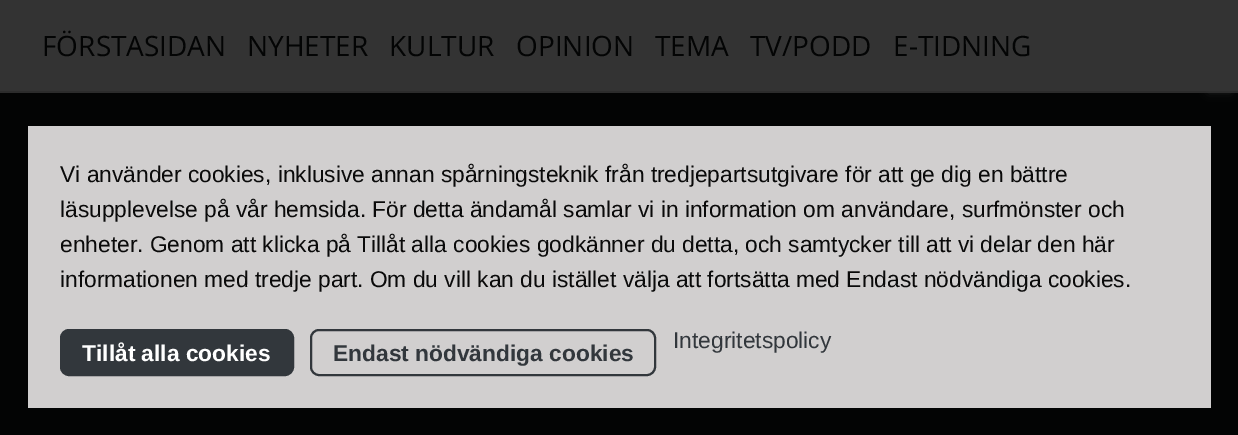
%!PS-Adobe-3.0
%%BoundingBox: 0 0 1238 435
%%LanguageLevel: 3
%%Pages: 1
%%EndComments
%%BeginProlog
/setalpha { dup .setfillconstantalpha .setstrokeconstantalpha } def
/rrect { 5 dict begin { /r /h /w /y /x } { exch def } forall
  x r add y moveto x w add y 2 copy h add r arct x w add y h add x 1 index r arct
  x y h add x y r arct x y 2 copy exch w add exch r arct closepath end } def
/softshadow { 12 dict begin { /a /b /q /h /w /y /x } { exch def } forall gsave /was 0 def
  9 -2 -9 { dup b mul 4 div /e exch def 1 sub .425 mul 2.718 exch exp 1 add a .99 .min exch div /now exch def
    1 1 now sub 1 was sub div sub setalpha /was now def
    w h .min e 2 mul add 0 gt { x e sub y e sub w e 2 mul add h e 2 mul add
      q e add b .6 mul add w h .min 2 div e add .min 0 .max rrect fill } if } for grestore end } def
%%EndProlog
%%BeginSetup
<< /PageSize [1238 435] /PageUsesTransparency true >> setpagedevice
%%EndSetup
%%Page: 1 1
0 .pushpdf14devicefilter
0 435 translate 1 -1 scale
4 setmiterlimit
0.012 0.016 0.016 setrgbcolor
0 0 1238 435 rectfill
0.2 setgray
0 0 1238 91 rectfill
0.173 setgray
0 91 1238 2 rectfill
gsave
newpath 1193 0 moveto 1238 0 lineto 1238 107 lineto 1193 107 lineto closepath 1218 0 moveto 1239 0 lineto 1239 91 lineto 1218 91 lineto closepath eoclip newpath
0.2 setgray
1209 0 21 91 0 5 0.8 softshadow
grestore
0.82 0.812 0.812 setrgbcolor
28 126 1183 282 rectfill
0.196 0.216 0.235 setrgbcolor
61 330 232 45 8 rrect gsave fill grestore
2 setlinewidth
stroke
311 330 344 45 8 rrect stroke
/OpenSans-Regular [28 0 0 -28 0 0] selectfont
0.012 0.016 0.016 setrgbcolor
42 56 moveto (FÖRSTASIDAN) show
247 56 moveto (NYHETER) show
389 56 moveto (KULTUR) show
516 56 moveto (OPINION) show
655 56 moveto (TEMA) show
750 56 moveto (TV/PODD) show
893 56 moveto (E-TIDNING) show
/LiberationSans-Regular [22.75 0 0 -22.75 0 0] selectfont
0.039 setgray
60 182 moveto (Vi använder cookies, inklusive annan spårningsteknik från tredjepartsutgivare för att ge dig en bättre) show
60 217 moveto (läsupplevelse på vår hemsida. För detta ändamål samlar vi in information om användare, surfmönster och) show
60 252 moveto (enheter. Genom att klicka på Tillåt alla cookies godkänner du detta, och samtycker till att vi delar den här) show
60 287 moveto (informationen med tredje part. Om du vill kan du istället välja att fortsätta med Endast nödvändiga cookies.) show
/LiberationSans-Bold [22.75 0 0 -22.75 0 0] selectfont
1 setgray
82 361 moveto (Tillåt alla cookies) show
0.196 0.216 0.235 setrgbcolor
333 361 moveto (Endast nödvändiga cookies) show
/LiberationSans-Regular [22.75 0 0 -22.75 0 0] selectfont
673 348 moveto (Integritetspolicy) show
.poppdf14devicefilter showpage
%%EOF
